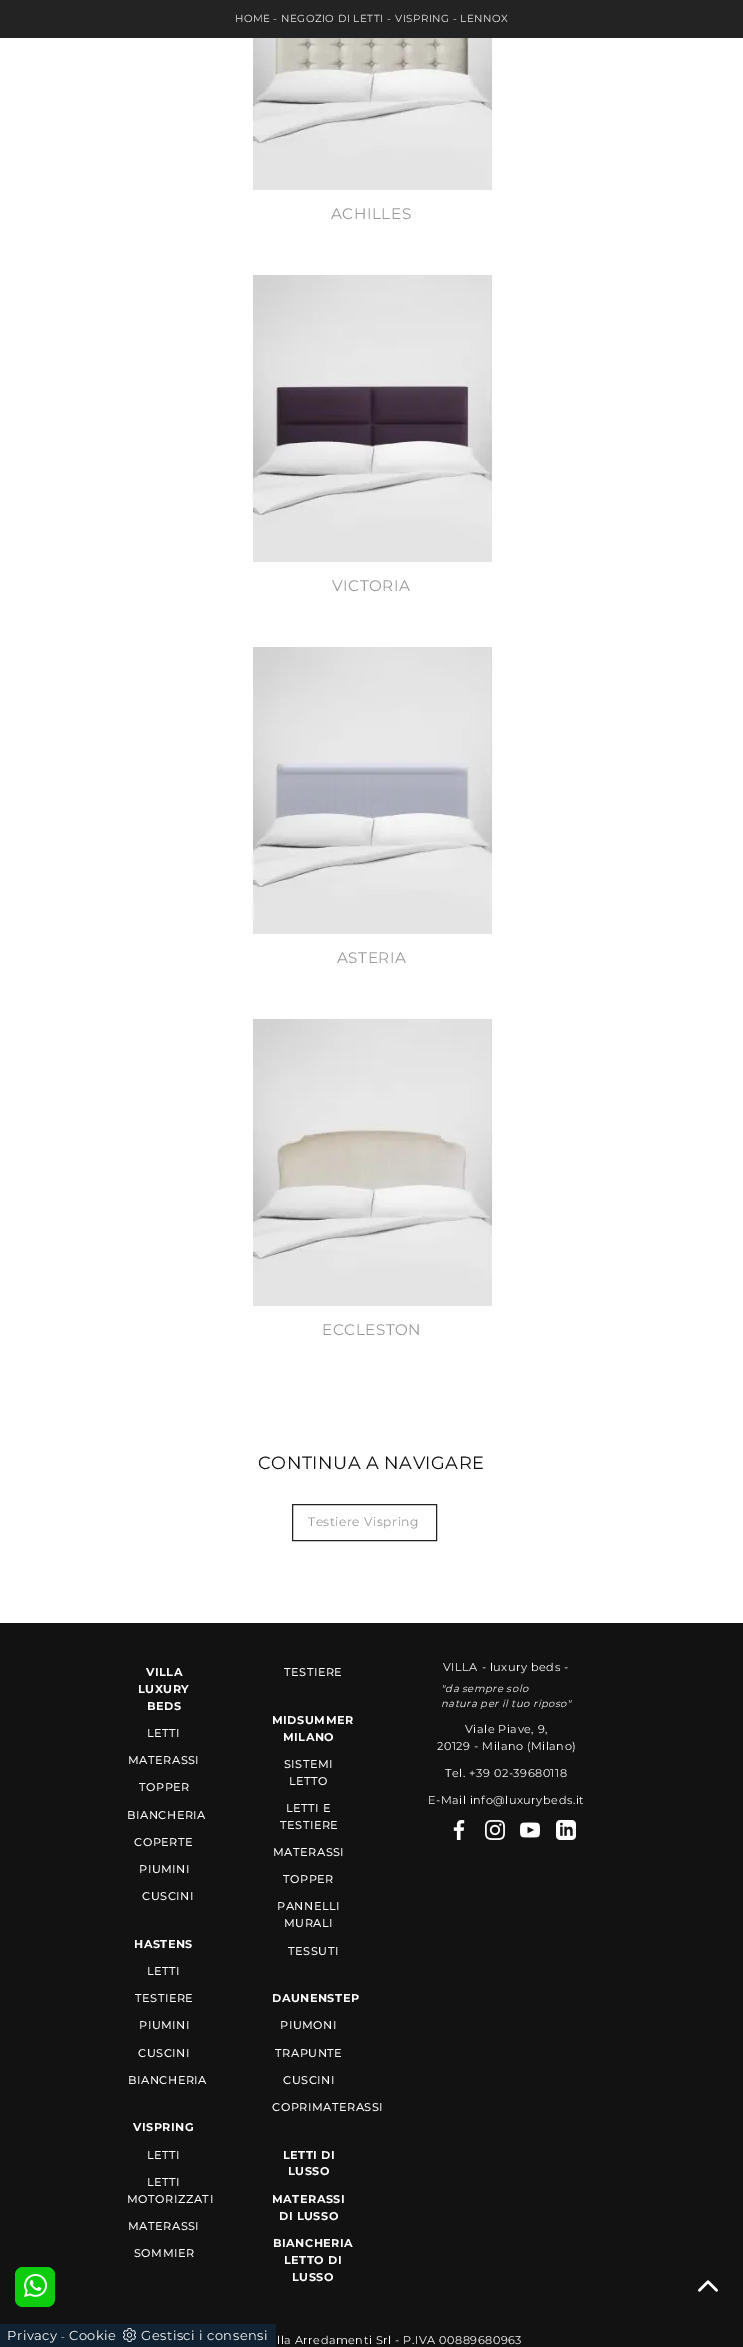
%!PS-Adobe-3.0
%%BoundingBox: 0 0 743 2347
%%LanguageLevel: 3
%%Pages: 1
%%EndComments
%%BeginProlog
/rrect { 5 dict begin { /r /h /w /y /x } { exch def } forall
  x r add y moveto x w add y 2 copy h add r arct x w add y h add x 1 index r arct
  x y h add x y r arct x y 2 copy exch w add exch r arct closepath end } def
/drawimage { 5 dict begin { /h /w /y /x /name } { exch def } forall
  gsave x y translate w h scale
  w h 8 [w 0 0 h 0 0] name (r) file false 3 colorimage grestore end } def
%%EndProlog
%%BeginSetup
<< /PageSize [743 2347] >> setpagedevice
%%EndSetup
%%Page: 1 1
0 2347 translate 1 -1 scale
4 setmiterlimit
1 setgray
0 0 743 2347 rectfill
0.137 setgray
0 0 743 38 rectfill
(images/1.raw) 253 38 240 152 drawimage
(images/2.raw) 251 275 242 287 drawimage
(images/3.raw) 251 647 242 287 drawimage
(images/4.raw) 253 1019 240 287 drawimage
292.5 1504.5 144 36 rectstroke
0.071 setgray
0 1623 743 724 rectfill
0.055 0.8 0.055 setrgbcolor
15 2267 40 40 8 rrect fill
(images/5.raw) 24 2274 23 23 drawimage
(images/6.raw) 453 1820 12 20 drawimage
(images/7.raw) 485 1820 20 20 drawimage
(images/8.raw) 520 1822 20 16 drawimage
(images/9.raw) 556 1820 20 20 drawimage
(images/10.raw) 698 2280 20 12 drawimage
0.067 0.133 0.2 setrgbcolor
0 2324 276 23 rectfill
(images/11.raw) 123 2328 13 14 drawimage
/Montserrat-Regular [10.25 0 0 -10.25 0 0] selectfont
0.933 setgray
235 22 moveto 0.5 0 (HOME) ashow
1 setgray
273 22 moveto 0.5 0 (-) ashow
0.933 setgray
281 22 moveto 0.5 0 (NEGOZIO DI LETTI) ashow
1 setgray
387 22 moveto 0.5 0 (-) ashow
0.933 setgray
395 22 moveto 0.5 0 (VISPRING) ashow
1 setgray
453 22 moveto 0.5 0 (-) ashow
0.933 setgray
460 22 moveto 0.5 0 (LENNOX) ashow
/Montserrat-Regular [15.25 0 0 -15.25 0 0] selectfont
0.6 setgray
331 219 moveto 0.5 0 (ACHILLES) ashow
332 591 moveto 0.5 0 (VICTORIA) ashow
337 963 moveto 0.5 0 (ASTERIA) ashow
322 1335 moveto 0.5 0 (ECCLESTON) ashow
/Montserrat-Regular [17.75 0 0 -17.75 0 0] selectfont
0.071 setgray
258 1469 moveto 0.5 0 (CONTINUA A NAVIGARE) ashow
/Montserrat-Regular [12.25 0 0 -12.25 0 0] selectfont
0.6 setgray
308 1526 moveto 0.5 0 (Testiere Vispring) ashow
/Montserrat-Bold [11.25 0 0 -11.25 0 0] selectfont
1 setgray
146 1676 moveto 0.5 0 (VILLA) ashow
138 1693 moveto 0.5 0 (LUXURY) ashow
147 1710 moveto 0.5 0 (BEDS) ashow
/Montserrat-Medium [11.25 0 0 -11.25 0 0] selectfont
147 1737 moveto 0.5 0 (LETTI) ashow
128 1764 moveto 0.5 0 (MATERASSI) ashow
139 1791 moveto 0.5 0 (TOPPER) ashow
127 1819 moveto 0.5 0 (BIANCHERIA) ashow
134 1846 moveto 0.5 0 (COPERTE) ashow
139 1873 moveto 0.5 0 (PIUMINI) ashow
142 1900 moveto 0.5 0 (CUSCINI) ashow
284 1676 moveto 0.5 0 (TESTIERE) ashow
/Montserrat-Bold [11.25 0 0 -11.25 0 0] selectfont
133 2131 moveto 0.5 0 (VISPRING) ashow
/Montserrat-Medium [11.25 0 0 -11.25 0 0] selectfont
147 2159 moveto 0.5 0 (LETTI) ashow
147 2186 moveto 0.5 0 (LETTI) ashow
127 2203 moveto 0.5 0 (MOTORIZZATI) ashow
128 2230 moveto 0.5 0 (MATERASSI) ashow
134 2257 moveto 0.5 0 (SOMMIER) ashow
/Montserrat-Bold [11.25 0 0 -11.25 0 0] selectfont
272 1724 moveto 0.5 0 (MIDSUMMER) ashow
283 1741 moveto 0.5 0 (MILANO) ashow
/Montserrat-Medium [11.25 0 0 -11.25 0 0] selectfont
284 1768 moveto 0.5 0 (SISTEMI) ashow
289 1785 moveto 0.5 0 (LETTO) ashow
286 1812 moveto 0.5 0 (LETTI E) ashow
280 1829 moveto 0.5 0 (TESTIERE) ashow
273 1856 moveto 0.5 0 (MATERASSI) ashow
283 1883 moveto 0.5 0 (TOPPER) ashow
277 1910 moveto 0.5 0 (PANNELLI) ashow
284 1927 moveto 0.5 0 (MURALI) ashow
288 1955 moveto 0.5 0 (TESSUTI) ashow
/Montserrat-Bold [11.25 0 0 -11.25 0 0] selectfont
134 1948 moveto 0.5 0 (HASTENS) ashow
/Montserrat-Medium [11.25 0 0 -11.25 0 0] selectfont
147 1975 moveto 0.5 0 (LETTI) ashow
135 2002 moveto 0.5 0 (TESTIERE) ashow
139 2029 moveto 0.5 0 (PIUMINI) ashow
138 2057 moveto 0.5 0 (CUSCINI) ashow
128 2084 moveto 0.5 0 (BIANCHERIA) ashow
/Montserrat-Bold [11.25 0 0 -11.25 0 0] selectfont
272 2002 moveto 0.5 0 (DAUNENSTEP) ashow
/Montserrat-Medium [11.25 0 0 -11.25 0 0] selectfont
280 2029 moveto 0.5 0 (PIUMONI) ashow
275 2057 moveto 0.5 0 (TRAPUNTE) ashow
283 2084 moveto 0.5 0 (CUSCINI) ashow
272 2111 moveto 0.5 0 (COPRIMATERASSI) ashow
/Montserrat-Bold [11.25 0 0 -11.25 0 0] selectfont
283 2159 moveto 0.5 0 (LETTI DI) ashow
288 2175 moveto 0.5 0 (LUSSO) ashow
272 2203 moveto 0.5 0 (MATERASSI) ashow
279 2220 moveto 0.5 0 (DI LUSSO) ashow
273 2247 moveto 0.5 0 (BIANCHERIA) ashow
284 2264 moveto 0.5 0 (LETTO DI) ashow
292 2281 moveto 0.5 0 (LUSSO) ashow
/Montserrat-Regular [11.25 0 0 -11.25 0 0] selectfont
443 1671 moveto 0.5 0 (VILLA - luxury beds -) ashow
/Montserrat-Italic [10 0 0 -10 0 0] selectfont
441 1692 moveto 0.5 0 ("da sempre solo) ashow
441 1707 moveto 0.5 0 (natura per il tuo riposo") ashow
/Montserrat-Regular [11.25 0 0 -11.25 0 0] selectfont
465 1733 moveto 0.5 0 (Viale Piave, 9,) ashow
437 1750 moveto 0.5 0 (20129 - Milano \(Milano\)) ashow
445 1777 moveto 0.5 0 (Tel. +39 02-39680118) ashow
428 1804 moveto 0.5 0 (E-Mail info@luxurybeds.it) ashow
277 2344 moveto 0.5 0 (lla Arredamenti Srl - P.IVA 00889680963) ashow
/Montserrat-Regular [13 0 0 -13 0 0] selectfont
7 2340 moveto 0.5 0 (Privacy) ashow
/Montserrat-Regular [10.25 0 0 -10.25 0 0] selectfont
61 2340 moveto 0.5 0 (-) ashow
/Montserrat-Regular [13 0 0 -13 0 0] selectfont
69 2340 moveto 0.5 0 (Cookie) ashow
141 2340 moveto 0.5 0 (Gestisci i consensi) ashow
showpage
%%EOF
